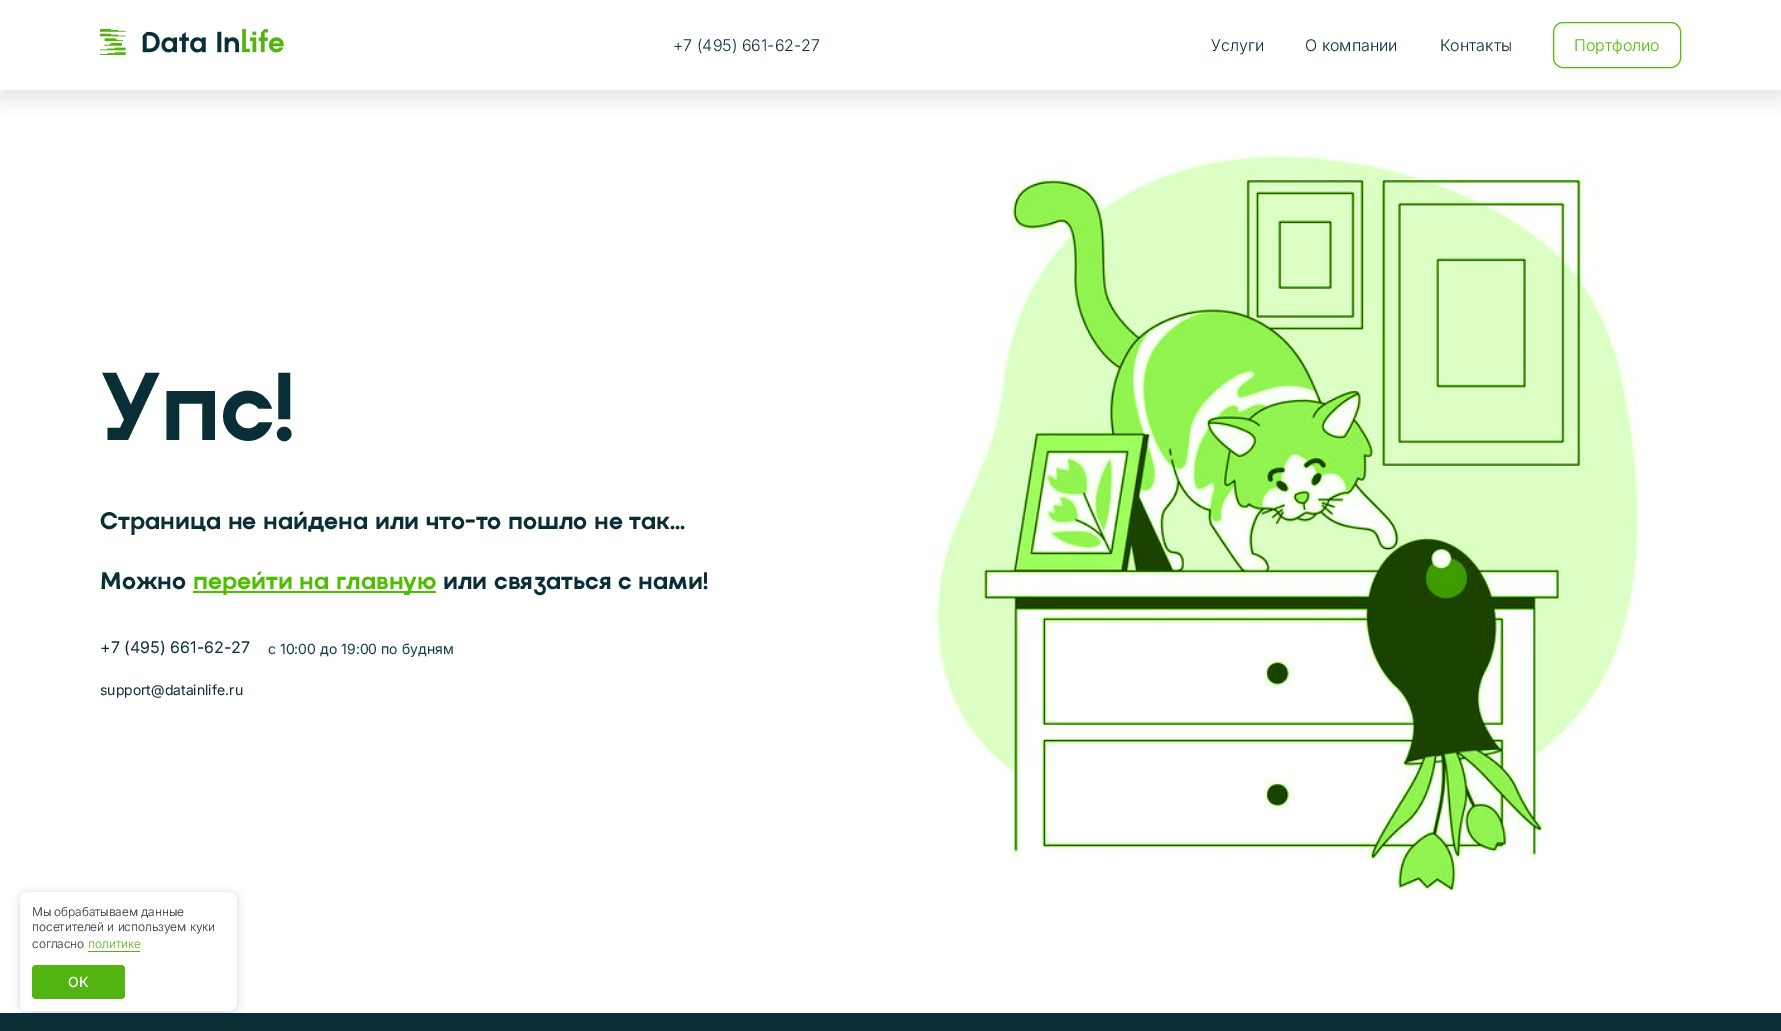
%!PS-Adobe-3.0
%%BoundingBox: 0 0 1781 1031
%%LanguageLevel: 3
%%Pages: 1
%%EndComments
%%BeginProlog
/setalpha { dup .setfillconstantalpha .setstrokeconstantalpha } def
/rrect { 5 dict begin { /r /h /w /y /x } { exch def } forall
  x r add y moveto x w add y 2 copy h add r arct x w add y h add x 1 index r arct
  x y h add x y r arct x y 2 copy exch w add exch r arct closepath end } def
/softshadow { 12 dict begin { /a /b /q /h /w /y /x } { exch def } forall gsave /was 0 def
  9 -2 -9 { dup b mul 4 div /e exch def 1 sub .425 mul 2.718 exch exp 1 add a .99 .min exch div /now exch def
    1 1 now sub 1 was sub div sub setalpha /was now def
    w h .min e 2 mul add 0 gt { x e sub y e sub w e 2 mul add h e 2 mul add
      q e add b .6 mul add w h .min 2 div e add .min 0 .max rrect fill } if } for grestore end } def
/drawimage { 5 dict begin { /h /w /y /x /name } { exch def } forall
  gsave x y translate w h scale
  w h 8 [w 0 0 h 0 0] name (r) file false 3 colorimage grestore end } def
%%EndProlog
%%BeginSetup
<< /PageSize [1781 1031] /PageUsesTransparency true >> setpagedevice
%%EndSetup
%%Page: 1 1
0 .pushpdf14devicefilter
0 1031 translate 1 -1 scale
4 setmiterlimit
1 setgray
0 0 1781 1031 rectfill
gsave
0 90 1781 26 rectclip
0.388 0.388 0.431 setrgbcolor
0 7 1781 90 0 14.5 0.2 softshadow
grestore
(images/1.raw) 100 29 184 26 drawimage
0.302 0.749 0 setrgbcolor
1553.5 22.5 127 45 9.5 rrect stroke
193 591 243 2 rectfill
(images/2.raw) 931 152 709 739 drawimage
0.039 0.18 0.212 setrgbcolor
0 1013 1781 18 rectfill
0.133 0.235 0.314 setrgbcolor
20 893 217 119 8 4 0.2 softshadow
1 setgray
20 892 217 119 8 rrect fill
0.322 0.706 0.063 setrgbcolor
88 951 52 1 rectfill
32 965 93 34 4 rrect fill
/Inter-Light [16 0 0 -16 0 0] selectfont
0.039 0.18 0.212 setrgbcolor
673 51 moveto (+7 \(495\) 661-62-27) show
1211 51 moveto (Услуги) show
1305 51 moveto (О компании) show
1440 51 moveto (Контакты) show
0.302 0.749 0 setrgbcolor
1574 51 moveto (Портфолио) show
/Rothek-Bold [96 0 0 -96 0 0] selectfont
0.039 0.18 0.212 setrgbcolor
100 440 moveto (Упс!) show
/Rothek-Bold [24 0 0 -24 0 0] selectfont
100 529 moveto (Страница не найдена или что-то пошло не так...) show
100 589 moveto (Можно) show
0.302 0.749 0 setrgbcolor
193 589 moveto (перейти на главную) show
0.039 0.18 0.212 setrgbcolor
443 589 moveto (или связаться с нами!) show
/Inter-Regular [16 0 0 -16 0 0] selectfont
100 653 moveto (+7 \(495\) 661-62-27) show
/Inter-Regular [14 0 0 -14 0 0] selectfont
0.063 0.243 0.282 setrgbcolor
268 654 moveto (с 10:00 до 19:00 по будням) show
0.039 0.18 0.212 setrgbcolor
100 695 moveto (support@datainlife.ru) show
/Inter-Light [12 0 0 -12 0 0] selectfont
0.161 0.169 0.196 setrgbcolor
32 916 moveto -0.1 0 (Мы обрабатываем данные) ashow
32 931 moveto -0.1 0 (посетителей и используем куки) ashow
32 948 moveto -0.1 0 (согласно) ashow
0.322 0.706 0.063 setrgbcolor
88 948 moveto -0.1 0 (политике) ashow
/Inter-Medium [14 0 0 -14 0 0] selectfont
1 setgray
68 987 moveto (ОК) show
.poppdf14devicefilter showpage
%%EOF
